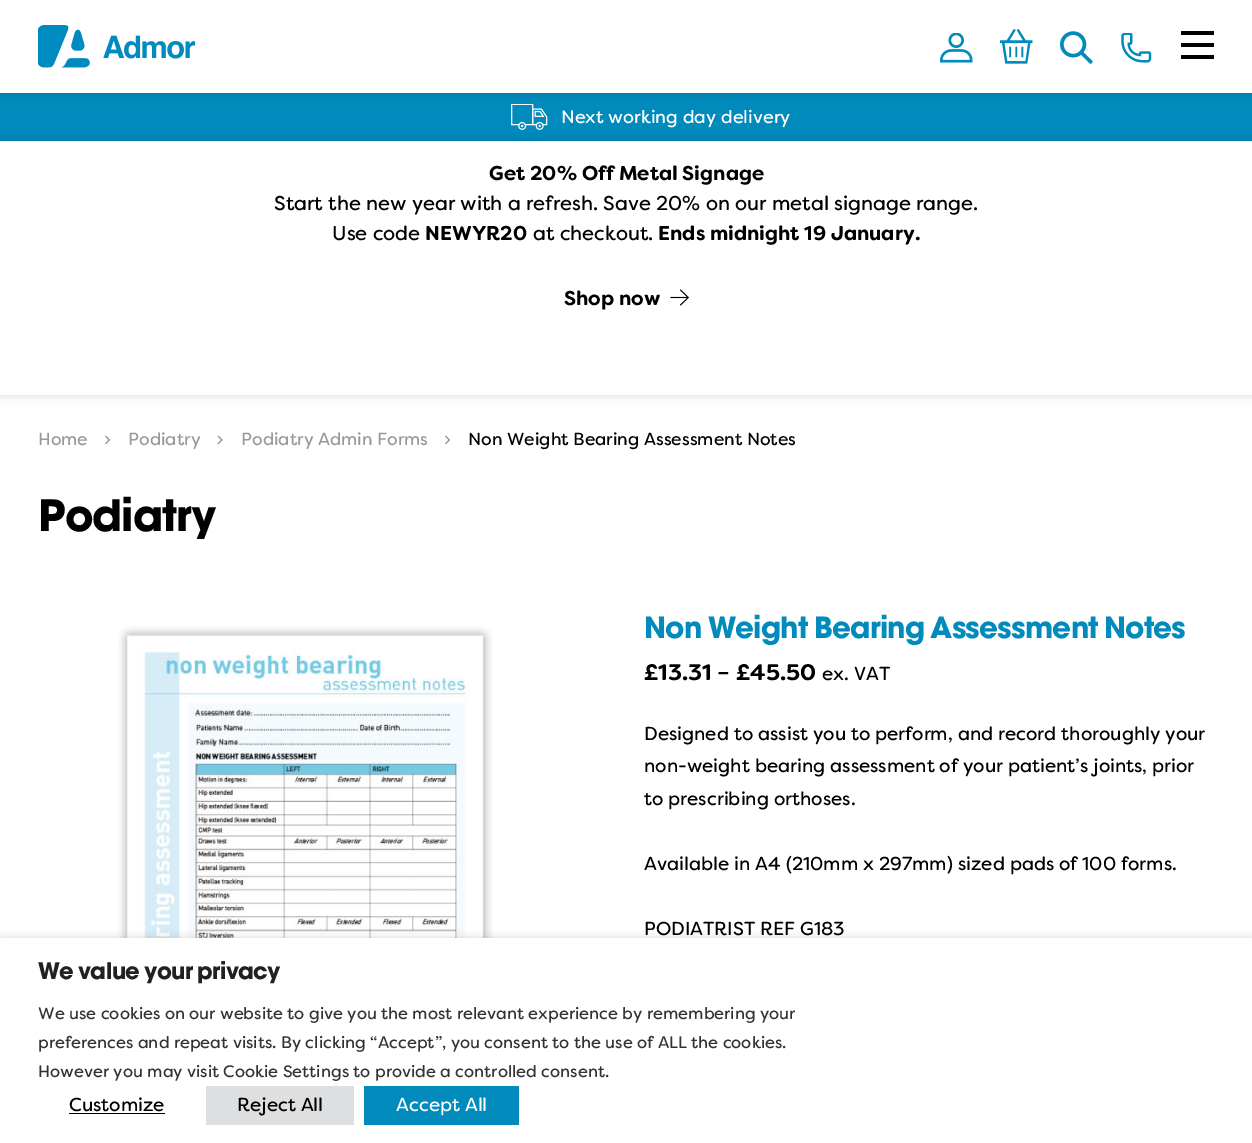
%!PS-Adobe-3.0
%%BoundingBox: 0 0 1252 1143
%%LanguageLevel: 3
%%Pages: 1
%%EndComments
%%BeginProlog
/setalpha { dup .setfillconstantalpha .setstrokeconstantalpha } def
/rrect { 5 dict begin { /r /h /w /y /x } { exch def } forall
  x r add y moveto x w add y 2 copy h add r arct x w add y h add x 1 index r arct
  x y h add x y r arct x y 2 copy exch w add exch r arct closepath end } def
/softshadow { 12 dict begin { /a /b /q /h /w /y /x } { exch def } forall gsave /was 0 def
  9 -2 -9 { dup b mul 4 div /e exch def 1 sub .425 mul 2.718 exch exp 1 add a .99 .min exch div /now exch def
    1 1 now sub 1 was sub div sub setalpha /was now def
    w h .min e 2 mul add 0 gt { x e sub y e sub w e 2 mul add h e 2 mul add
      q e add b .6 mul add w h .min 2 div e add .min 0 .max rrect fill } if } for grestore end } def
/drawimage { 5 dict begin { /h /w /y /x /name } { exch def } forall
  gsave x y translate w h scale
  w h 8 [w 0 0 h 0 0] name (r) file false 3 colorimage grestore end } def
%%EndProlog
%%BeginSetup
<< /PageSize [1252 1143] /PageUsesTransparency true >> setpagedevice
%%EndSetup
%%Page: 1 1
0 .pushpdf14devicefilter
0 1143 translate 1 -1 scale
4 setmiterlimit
1 setgray
0 0 1252 1143 rectfill
0 0.545 0.737 setrgbcolor
0 93 1252 48 rectfill
gsave
newpath 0 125 moveto 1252 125 lineto 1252 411 lineto 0 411 lineto closepath 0 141 moveto 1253 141 lineto 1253 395 lineto 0 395 lineto closepath eoclip newpath
0 setgray
0 141 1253 254 0 5 0.15 softshadow
grestore
(images/6.raw) 511 104 37 26 drawimage
0 setgray
0 0 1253 93 0 5 0.15 softshadow
1 setgray
0 0 1252 93 rectfill
(images/1.raw) 38 25 157 43 drawimage
(images/2.raw) 940 33 33 30 drawimage
(images/3.raw) 1000 29 33 35 drawimage
(images/4.raw) 1060 31 33 33 drawimage
(images/5.raw) 1121 33 31 30 drawimage
0 setgray
newpath 1181 31 moveto 1214 31 lineto 1214 35 lineto 1181 35 lineto closepath 1181 43 moveto 1214 43 lineto 1214 47 lineto 1181 47 lineto closepath 1181 55 moveto 1214 55 lineto 1214 59 lineto 1181 59 lineto closepath fill
(images/7.raw) 670 289 19 17 drawimage
(images/8.raw) 105 435 5 10 drawimage
(images/9.raw) 217 435 6 10 drawimage
(images/8.raw) 445 435 5 10 drawimage
(images/10.raw) 118 626 375 312 drawimage
0 944 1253 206 0 6 0.5 softshadow
1 setgray
0 938 1252 205 rectfill
0 setgray
69 1113 96 1 rectfill
0.871 0.875 0.878 setrgbcolor
206 1086 148 39 rectfill
0 0.545 0.737 setrgbcolor
364 1086 155 39 rectfill
/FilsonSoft-Regular [18.1 0 0 -18.1 0 0] selectfont
1 setgray
561 123 moveto (Next working day delivery) show
/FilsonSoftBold-Bold [20 0 0 -20 0 0] selectfont
0 setgray
489 180 moveto (Get 20% Off Metal Signage) show
/FilsonSoft-Regular [20 0 0 -20 0 0] selectfont
274 210 moveto (Start the new year with a refresh. Save 20% on our metal signage range.) show
332 240 moveto (Use code) show
/FilsonSoftBold-Bold [20 0 0 -20 0 0] selectfont
425 240 moveto (NEWYR20) show
/FilsonSoft-Regular [20 0 0 -20 0 0] selectfont
533 240 moveto (at checkout.) show
/FilsonSoftBold-Bold [20 0 0 -20 0 0] selectfont
658 240 moveto (Ends midnight 19 January.) show
564 305 moveto (Shop now) show
/FilsonSoft-Regular [17.5 0 0 -17.5 0 0] selectfont
0.6 setgray
38 445 moveto (Home) show
128 445 moveto (Podiatry) show
241 445 moveto (Podiatry Admin Forms) show
0 setgray
468 445 moveto (Non Weight Bearing Assessment Notes) show
/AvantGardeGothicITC-Bold [43 0 0 -43 0 0] selectfont
38 531 moveto -1 0 (Podiatry) ashow
/AvantGardeGothicITC-Bold [29.1 0 0 -29.1 0 0] selectfont
0 0.545 0.737 setrgbcolor
644 638 moveto -0.75 0 (Non Weight Bearing Assessment Notes) ashow
/FilsonSoftBold-Bold [22.5 0 0 -22.5 0 0] selectfont
0 setgray
644 680 moveto (£13.31) show
/FilsonSoft-Regular [22.5 0 0 -22.5 0 0] selectfont
717 680 moveto (–) show
/FilsonSoftBold-Bold [22.5 0 0 -22.5 0 0] selectfont
736 680 moveto (£45.50) show
/FilsonSoft-Regular [18.75 0 0 -18.75 0 0] selectfont
822 680 moveto (ex. VAT) show
644 740 moveto (Designed to assist you to perform, and record thoroughly your) show
644 772 moveto (non-weight bearing assessment of your patient’s joints, prior) show
644 805 moveto (to prescribing orthoses.) show
644 870 moveto (Available in A4 \(210mm x 297mm\) sized pads of 100 forms.) show
644 935 moveto (PODIATRIST REF G183) show
/AvantGardeGothicITC-Bold [22.5 0 0 -22.5 0 0] selectfont
0.129 setgray
38 979 moveto -0.6 0 (We value your privacy) ashow
/FilsonSoft-Regular [16.65 0 0 -16.65 0 0] selectfont
0.2 setgray
38 1019 moveto (We use cookies on our website to give you the most relevant experience by remembering your) show
38 1048 moveto (preferences and repeat visits. By clicking “Accept”, you consent to the use of ALL the cookies.) show
38 1077 moveto (However you may visit Cookie Settings to provide a controlled consent.) show
/FilsonSoft-Regular [18.75 0 0 -18.75 0 0] selectfont
0 setgray
69 1111 moveto (Customize) show
237 1111 moveto (Reject All) show
1 setgray
396 1111 moveto (Accept All) show
.poppdf14devicefilter showpage
%%EOF
